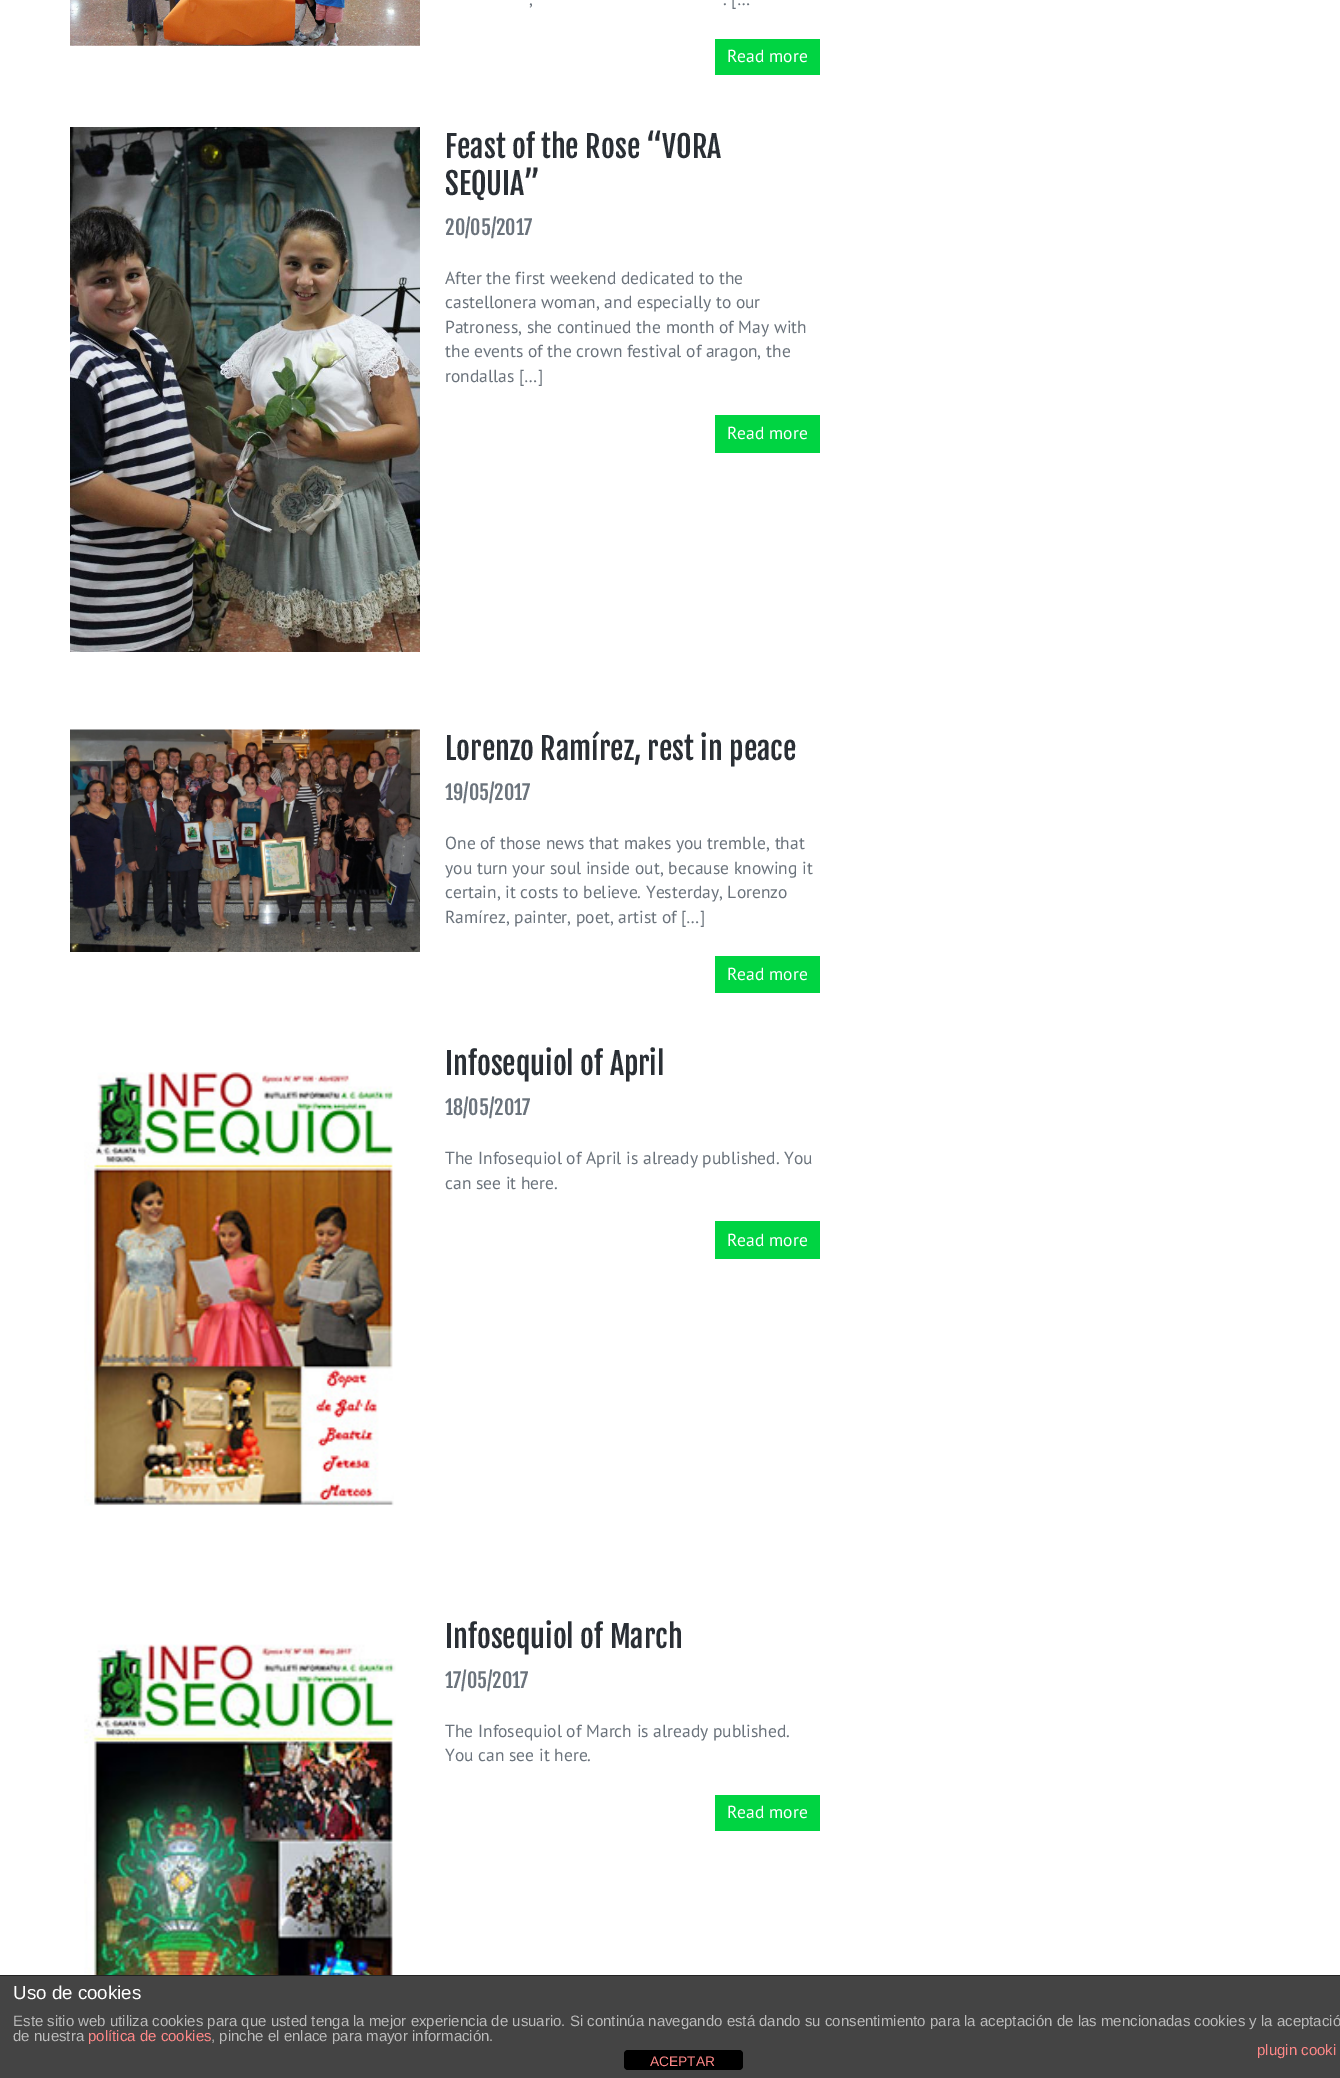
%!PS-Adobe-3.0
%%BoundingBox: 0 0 1340 2078
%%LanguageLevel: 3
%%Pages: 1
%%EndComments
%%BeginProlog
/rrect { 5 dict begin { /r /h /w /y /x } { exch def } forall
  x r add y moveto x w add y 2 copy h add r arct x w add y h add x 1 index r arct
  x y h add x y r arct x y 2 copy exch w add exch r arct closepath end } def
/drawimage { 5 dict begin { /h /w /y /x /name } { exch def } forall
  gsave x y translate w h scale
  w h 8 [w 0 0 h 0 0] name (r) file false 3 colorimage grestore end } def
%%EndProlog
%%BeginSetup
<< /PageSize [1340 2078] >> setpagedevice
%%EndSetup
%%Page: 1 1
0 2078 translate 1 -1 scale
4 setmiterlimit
1 setgray
0 0 1340 2078 rectfill
(images/1.raw) 70 0 350 46 drawimage
0 0.831 0.259 setrgbcolor
715 39 105 36 rectfill
(images/2.raw) 70 127 350 525 drawimage
715 415 105 38 rectfill
(images/3.raw) 70 729 350 223 drawimage
715 956 105 37 rectfill
(images/4.raw) 84 1072 310 434 drawimage
715 1221 105 38 rectfill
(images/5.raw) 84 1644 312 331 drawimage
715 1795 105 36 rectfill
0.267 setgray
0 1976 1340 102 rectfill
0.133 setgray
0 1975 1340 1 rectfill
0 setgray
624 2050 119 20 4 rrect fill
/PTSans-Regular [17.5 0 0 -17.5 0 0] selectfont
0.42 0.451 0.486 setrgbcolor
529 5 moveto (,) show
723 5 moveto (. […) show
1 setgray
727 62 moveto (Read more) show
/FjallaOne-Regular [30 0 0 -30 0 0] selectfont
0.165 0.184 0.208 setrgbcolor
445 158 moveto (Feast of the Rose “VORA) show
445 195 moveto (SEQUIA”) show
/FjallaOne-Regular [20 0 0 -20 0 0] selectfont
0.42 0.451 0.486 setrgbcolor
445 235 moveto (20/05/2017) show
/PTSans-Regular [17.5 0 0 -17.5 0 0] selectfont
445 284 moveto (After the first weekend dedicated to the) show
445 308 moveto (castellonera woman, and especially to our) show
445 333 moveto (Patroness, she continued the month of May with) show
445 357 moveto (the events of the crown festival of aragon, the) show
445 382 moveto (rondallas […]) show
1 setgray
727 439 moveto (Read more) show
/FjallaOne-Regular [30 0 0 -30 0 0] selectfont
0.165 0.184 0.208 setrgbcolor
445 760 moveto (Lorenzo Ramírez, rest in peace) show
/FjallaOne-Regular [20 0 0 -20 0 0] selectfont
0.42 0.451 0.486 setrgbcolor
445 800 moveto (19/05/2017) show
/PTSans-Regular [17.5 0 0 -17.5 0 0] selectfont
445 849 moveto (One of those news that makes you tremble, that) show
445 874 moveto (you turn your soul inside out, because knowing it) show
445 898 moveto (certain, it costs to believe. Yesterday, Lorenzo) show
445 923 moveto (Ramírez, painter, poet, artist of […]) show
1 setgray
727 980 moveto (Read more) show
/FjallaOne-Regular [30 0 0 -30 0 0] selectfont
0.165 0.184 0.208 setrgbcolor
445 1075 moveto (Infosequiol of April) show
/FjallaOne-Regular [20 0 0 -20 0 0] selectfont
0.42 0.451 0.486 setrgbcolor
445 1115 moveto (18/05/2017) show
/PTSans-Regular [17.5 0 0 -17.5 0 0] selectfont
445 1164 moveto (The Infosequiol of April is already published. You) show
445 1189 moveto (can see it here.) show
1 setgray
727 1246 moveto (Read more) show
/FjallaOne-Regular [30 0 0 -30 0 0] selectfont
0.165 0.184 0.208 setrgbcolor
445 1648 moveto (Infosequiol of March) show
/FjallaOne-Regular [20 0 0 -20 0 0] selectfont
0.42 0.451 0.486 setrgbcolor
445 1688 moveto (17/05/2017) show
/PTSans-Regular [17.5 0 0 -17.5 0 0] selectfont
445 1737 moveto (The Infosequiol of March is already published.) show
445 1761 moveto (You can see it here.) show
1 setgray
727 1818 moveto (Read more) show
/LiberationSans-Regular [18.75 0 0 -18.75 0 0] selectfont
13 1999 moveto (Uso de cookies) show
/LiberationSans-Regular [15 0 0 -15 0 0] selectfont
0.733 setgray
13 2026 moveto (Este sitio web utiliza cookies para que usted tenga la mejor experiencia de usuario. Si continúa navegando está dando su consentimiento para la aceptación de las mencionadas cookies y la aceptació) show
13 2041 moveto (de nuestra) show
1 0.533 0.533 setrgbcolor
88 2041 moveto (política de cookies) show
0.733 setgray
211 2041 moveto (, pinche el enlace para mayor información.) show
1 0.533 0.533 setrgbcolor
1257 2055 moveto (plugin cooki) show
/LiberationSans-Regular [13.75 0 0 -13.75 0 0] selectfont
650 2066 moveto (ACEPTAR) show
showpage
%%EOF
